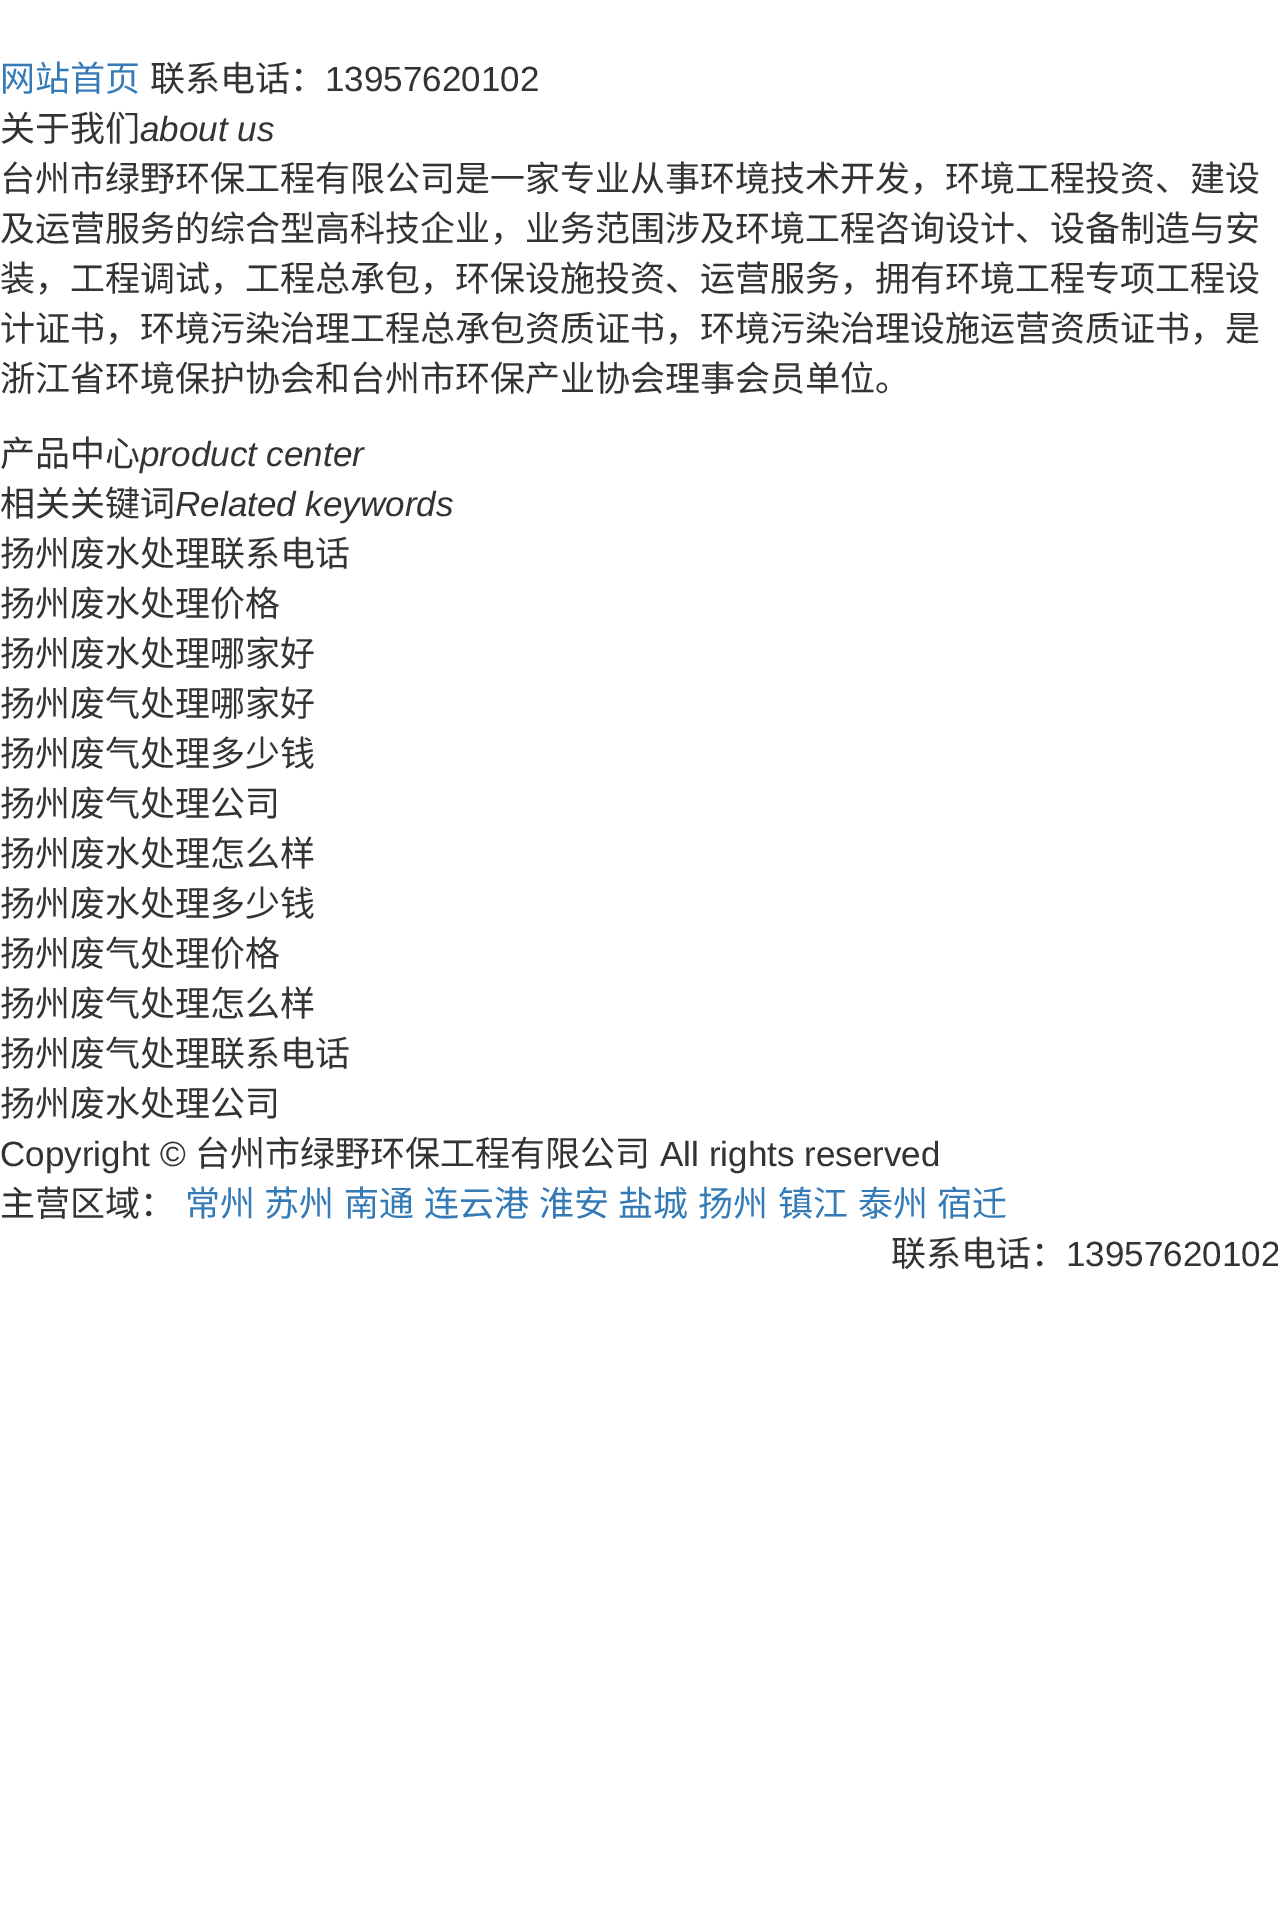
%!PS-Adobe-3.0
%%BoundingBox: 0 0 1278 1925
%%LanguageLevel: 3
%%Pages: 1
%%EndComments
%%BeginProlog
%%EndProlog
%%BeginSetup
<< /PageSize [1278 1925] >> setpagedevice
%%EndSetup
%%Page: 1 1
0 1925 translate 1 -1 scale
4 setmiterlimit
1 setgray
0 0 1278 1925 rectfill
/NotoSansCJKSC-Regular [35 0 0 -35 0 0] selectfont
0.2 0.478 0.718 setrgbcolor
0 91 moveto (网站首页) show
0.2 setgray
150 91 moveto (联系电话：) show
/LiberationSans-Regular [35 0 0 -35 0 0] selectfont
325 91 moveto (13957620102) show
/NotoSansCJKSC-Regular [35 0 0 -35 0 0] selectfont
0 141 moveto (关于我们) show
/LiberationSans-Italic [35 0 0 -35 0 0] selectfont
140 141 moveto (about us) show
/NotoSansCJKSC-Regular [35 0 0 -35 0 0] selectfont
0 191 moveto (台州市绿野环保工程有限公司是一家专业从事环境技术开发，环境工程投资、建设) show
0 241 moveto (及运营服务的综合型高科技企业，业务范围涉及环境工程咨询设计、设备制造与安) show
0 291 moveto (装，工程调试，工程总承包，环保设施投资、运营服务，拥有环境工程专项工程设) show
0 341 moveto (计证书，环境污染治理工程总承包资质证书，环境污染治理设施运营资质证书，是) show
0 391 moveto (浙江省环境保护协会和台州市环保产业协会理事会员单位。) show
0 466 moveto (产品中心) show
/LiberationSans-Italic [35 0 0 -35 0 0] selectfont
140 466 moveto (product center) show
/NotoSansCJKSC-Regular [35 0 0 -35 0 0] selectfont
0 516 moveto (相关关键词) show
/LiberationSans-Italic [35 0 0 -35 0 0] selectfont
175 516 moveto (Related keywords) show
/NotoSansCJKSC-Regular [35 0 0 -35 0 0] selectfont
0 566 moveto (扬州废水处理联系电话) show
0 616 moveto (扬州废水处理价格) show
0 666 moveto (扬州废水处理哪家好) show
0 716 moveto (扬州废气处理哪家好) show
0 766 moveto (扬州废气处理多少钱) show
0 816 moveto (扬州废气处理公司) show
0 866 moveto (扬州废水处理怎么样) show
0 916 moveto (扬州废水处理多少钱) show
0 966 moveto (扬州废气处理价格) show
0 1016 moveto (扬州废气处理怎么样) show
0 1066 moveto (扬州废气处理联系电话) show
0 1116 moveto (扬州废水处理公司) show
/LiberationSans-Regular [35 0 0 -35 0 0] selectfont
0 1166 moveto (Copyright ©) show
/NotoSansCJKSC-Regular [35 0 0 -35 0 0] selectfont
195 1166 moveto (台州市绿野环保工程有限公司) show
/LiberationSans-Regular [35 0 0 -35 0 0] selectfont
660 1166 moveto (All rights reserved) show
/NotoSansCJKSC-Regular [35 0 0 -35 0 0] selectfont
0 1216 moveto (主营区域：) show
0.2 0.478 0.718 setrgbcolor
185 1216 moveto (常州) show
264 1216 moveto (苏州) show
344 1216 moveto (南通) show
424 1216 moveto (连云港) show
539 1216 moveto (淮安) show
618 1216 moveto (盐城) show
698 1216 moveto (扬州) show
778 1216 moveto (镇江) show
858 1216 moveto (泰州) show
937 1216 moveto (宿迁) show
0.2 setgray
891 1266 moveto (联系电话：) show
/LiberationSans-Regular [35 0 0 -35 0 0] selectfont
1066 1266 moveto (13957620102) show
showpage
%%EOF
